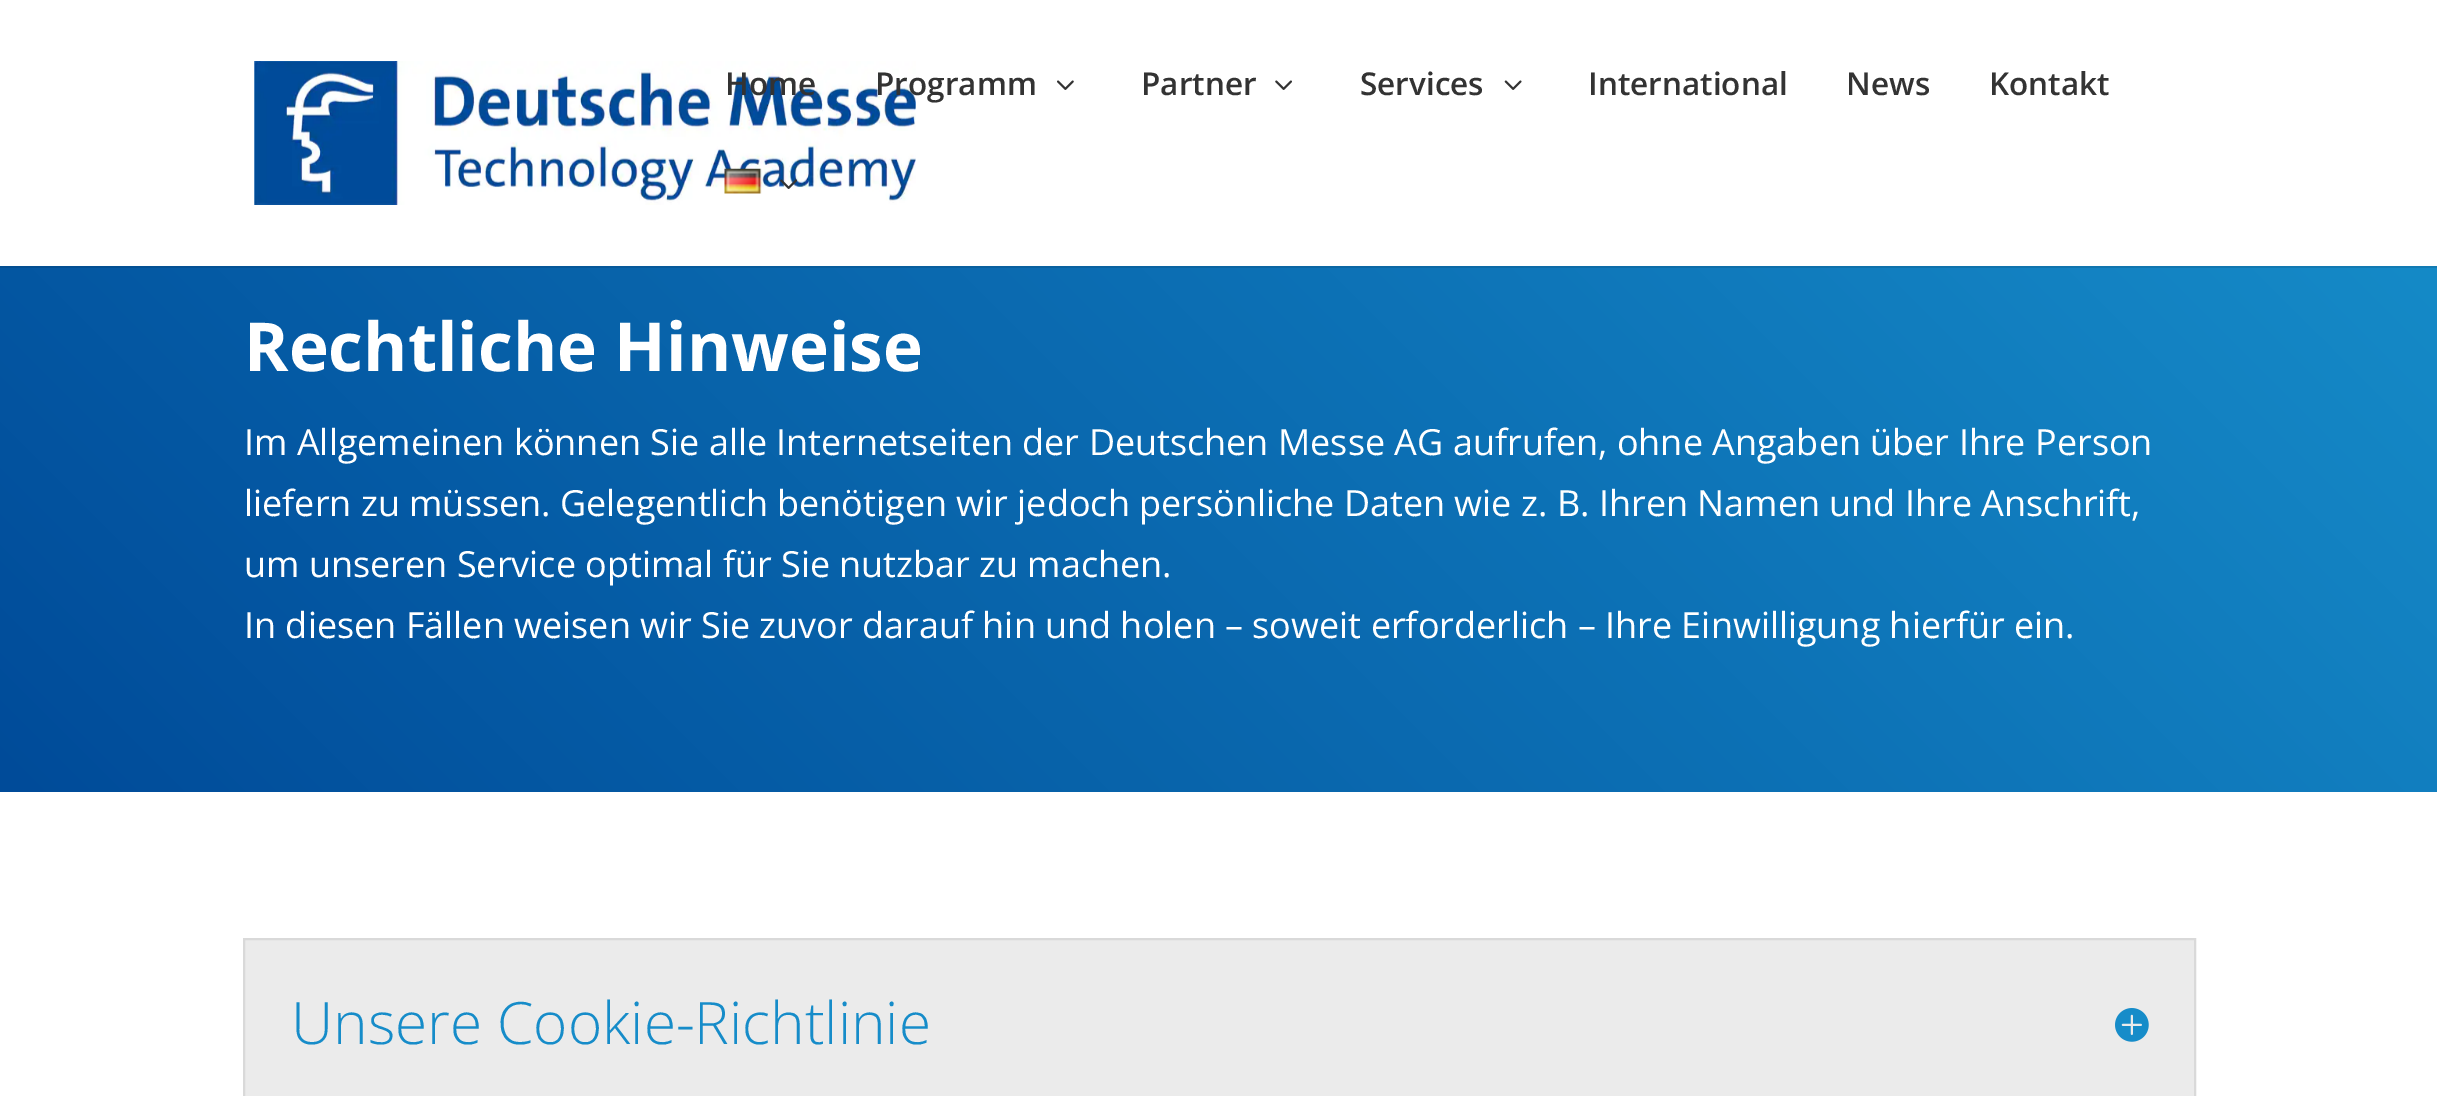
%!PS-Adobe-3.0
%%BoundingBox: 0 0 2437 1096
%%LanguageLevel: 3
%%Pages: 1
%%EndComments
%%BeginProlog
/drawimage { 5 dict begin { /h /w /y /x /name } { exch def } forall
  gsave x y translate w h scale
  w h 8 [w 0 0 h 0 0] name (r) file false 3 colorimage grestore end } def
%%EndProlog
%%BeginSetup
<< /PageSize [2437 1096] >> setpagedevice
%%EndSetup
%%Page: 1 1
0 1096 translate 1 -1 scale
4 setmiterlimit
1 setgray
0 0 2437 1096 rectfill
(images/1.raw) 254 61 662 144 drawimage
(images/2.raw) 1057 80 17 10 drawimage
(images/3.raw) 1275 80 17 10 drawimage
(images/4.raw) 1504 80 18 10 drawimage
(images/5.raw) 724 168 38 26 drawimage
(images/6.raw) 780 179 17 10 drawimage
gsave newpath 0 268 moveto 2437 268 lineto 2437 792 lineto 0 792 lineto closepath clip newpath
<< /ShadingType 2 /ColorSpace /DeviceRGB /Coords [453 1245 1986 -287] /Extend [true true] /Function << /FunctionType 2 /Domain [0 1] /C0 [0 0.294 0.6] /C1 [0.086 0.549 0.788] /N 1 >> >> shfill grestore
gsave newpath 0 266 moveto 2437 266 lineto 2437 268 lineto 0 268 lineto closepath clip newpath
<< /ShadingType 2 /ColorSpace /DeviceRGB /Coords [453 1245 1986 -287] /Extend [true true] /Function << /FunctionType 2 /Domain [0 1] /C0 [0 0.267 0.541] /C1 [0.078 0.494 0.71] /N 1 >> >> shfill grestore
0.922 setgray
newpath 244 939 moveto 2195 939 lineto 2195 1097 lineto 244 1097 lineto closepath gsave fill grestore
0.851 setgray
2 setlinewidth
stroke
(images/7.raw) 2115 1008 34 34 drawimage
/OpenSans-SemiBold [31.5 0 0 -31.5 0 0] selectfont
0.2 setgray
725 95 moveto (Home) show
875 95 moveto (Programm) show
1141 95 moveto (Partner) show
1360 95 moveto (Services) show
1588 95 moveto (International) show
1846 95 moveto (News) show
1989 95 moveto (Kontakt) show
/OpenSans-Bold [67.5 0 0 -67.5 0 0] selectfont
1 setgray
244 371 moveto (Rechtliche Hinweise) show
/OpenSans-Regular [36 0 0 -36 0 0] selectfont
244 455 moveto (Im Allgemeinen können Sie alle Internetseiten der Deutschen Messe AG aufrufen, ohne Angaben über Ihre Person) show
244 516 moveto (liefern zu müssen. Gelegentlich benötigen wir jedoch persönliche Daten wie z. B. Ihren Namen und Ihre Anschrift,) show
244 577 moveto (um unseren Service optimal für Sie nutzbar zu machen.) show
244 638 moveto (In diesen Fällen weisen wir Sie zuvor darauf hin und holen – soweit erforderlich – Ihre Einwilligung hierfür ein.) show
/OpenSans-Light [58.5 0 0 -58.5 0 0] selectfont
0.086 0.549 0.788 setrgbcolor
291 1044 moveto (Unsere Cookie-Richtlinie) show
showpage
%%EOF
